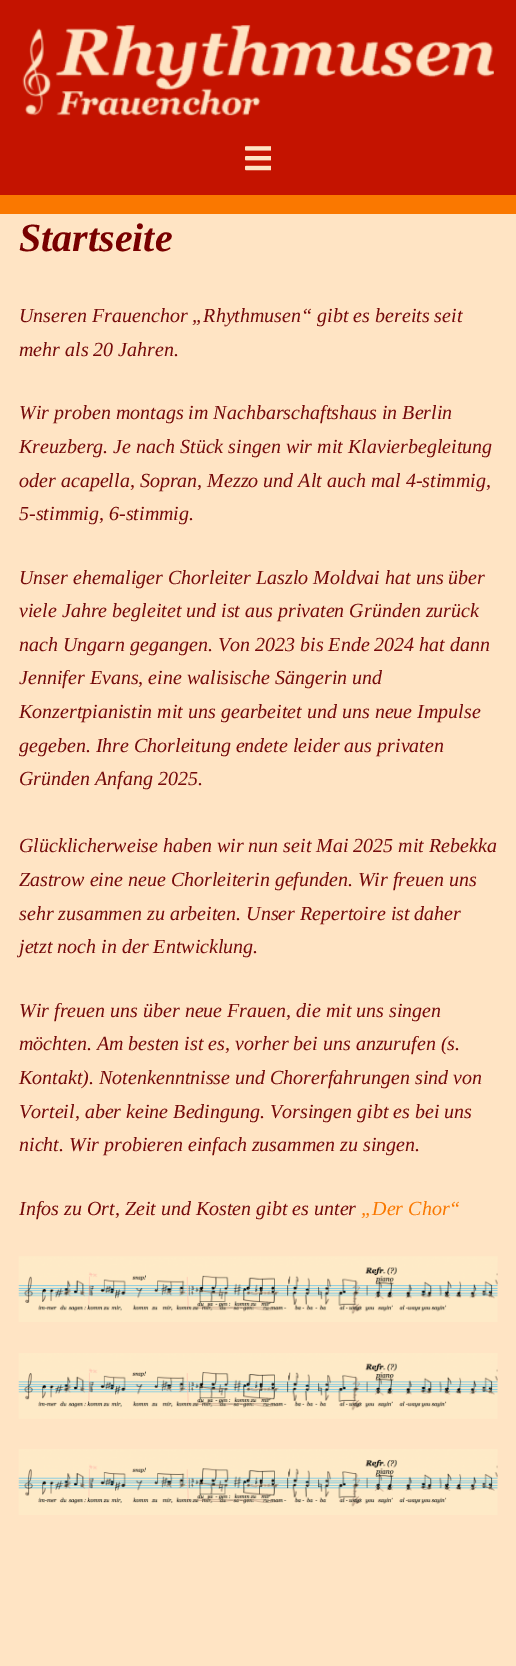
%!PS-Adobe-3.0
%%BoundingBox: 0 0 516 1666
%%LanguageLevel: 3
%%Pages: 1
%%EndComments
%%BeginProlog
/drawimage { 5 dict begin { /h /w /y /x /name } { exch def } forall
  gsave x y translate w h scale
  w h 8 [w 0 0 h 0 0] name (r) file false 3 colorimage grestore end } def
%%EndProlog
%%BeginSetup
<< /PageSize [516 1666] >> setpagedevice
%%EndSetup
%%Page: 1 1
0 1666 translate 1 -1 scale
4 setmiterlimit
0.98 0.471 0 setrgbcolor
0 0 516 1666 rectfill
0.769 0.075 0 setrgbcolor
0 0 516 195 rectfill
(images/1.raw) 22 25 472 91 drawimage
(images/2.raw) 245 146 26 25 drawimage
1 0.894 0.769 setrgbcolor
0 214 516 1452 rectfill
(images/3.raw) 18 1256 480 66 drawimage
(images/4.raw) 18 1353 480 66 drawimage
(images/5.raw) 18 1449 480 66 drawimage
/LiberationSerif-BoldItalic [40 0 0 -40 0 0] selectfont
0.471 0 0 setrgbcolor
19 251 moveto (Startseite) show
/LiberationSerif-Italic [20 0 0 -20 0 0] selectfont
0.459 0.039 0.039 setrgbcolor
19 322 moveto (Unseren Frauenchor „Rhythmusen“ gibt es bereits seit) show
19 356 moveto (mehr als 20 Jahren.) show
19 419 moveto (Wir proben montags im Nachbarschaftshaus in Berlin) show
19 453 moveto (Kreuzberg. Je nach Stück singen wir mit Klavierbegleitung) show
19 487 moveto (oder acapella, Sopran, Mezzo und Alt auch mal 4-stimmig,) show
19 520 moveto (5-stimmig, 6-stimmig.) show
19 584 moveto (Unser ehemaliger Chorleiter Laszlo Moldvai hat uns über) show
19 617 moveto (viele Jahre begleitet und ist aus privaten Gründen zurück) show
19 651 moveto (nach Ungarn gegangen. Von 2023 bis Ende 2024 hat dann) show
19 684 moveto (Jennifer Evans, eine walisische Sängerin und) show
19 718 moveto (Konzertpianistin mit uns gearbeitet und uns neue Impulse) show
19 752 moveto (gegeben. Ihre Chorleitung endete leider aus privaten) show
19 785 moveto (Gründen Anfang 2025.) show
19 852 moveto (Glücklicherweise haben wir nun seit Mai 2025 mit Rebekka) show
19 886 moveto (Zastrow eine neue Chorleiterin gefunden. Wir freuen uns) show
19 920 moveto (sehr zusammen zu arbeiten. Unser Repertoire ist daher) show
19 953 moveto (jetzt noch in der Entwicklung.) show
19 1017 moveto (Wir freuen uns über neue Frauen, die mit uns singen) show
19 1050 moveto (möchten. Am besten ist es, vorher bei uns anzurufen \(s.) show
19 1084 moveto (Kontakt\). Notenkenntnisse und Chorerfahrungen sind von) show
19 1118 moveto (Vorteil, aber keine Bedingung. Vorsingen gibt es bei uns) show
19 1151 moveto (nicht. Wir probieren einfach zusammen zu singen.) show
19 1215 moveto (Infos zu Ort, Zeit und Kosten gibt es unter) show
0.98 0.471 0 setrgbcolor
361 1215 moveto („Der Chor“) show
showpage
%%EOF
